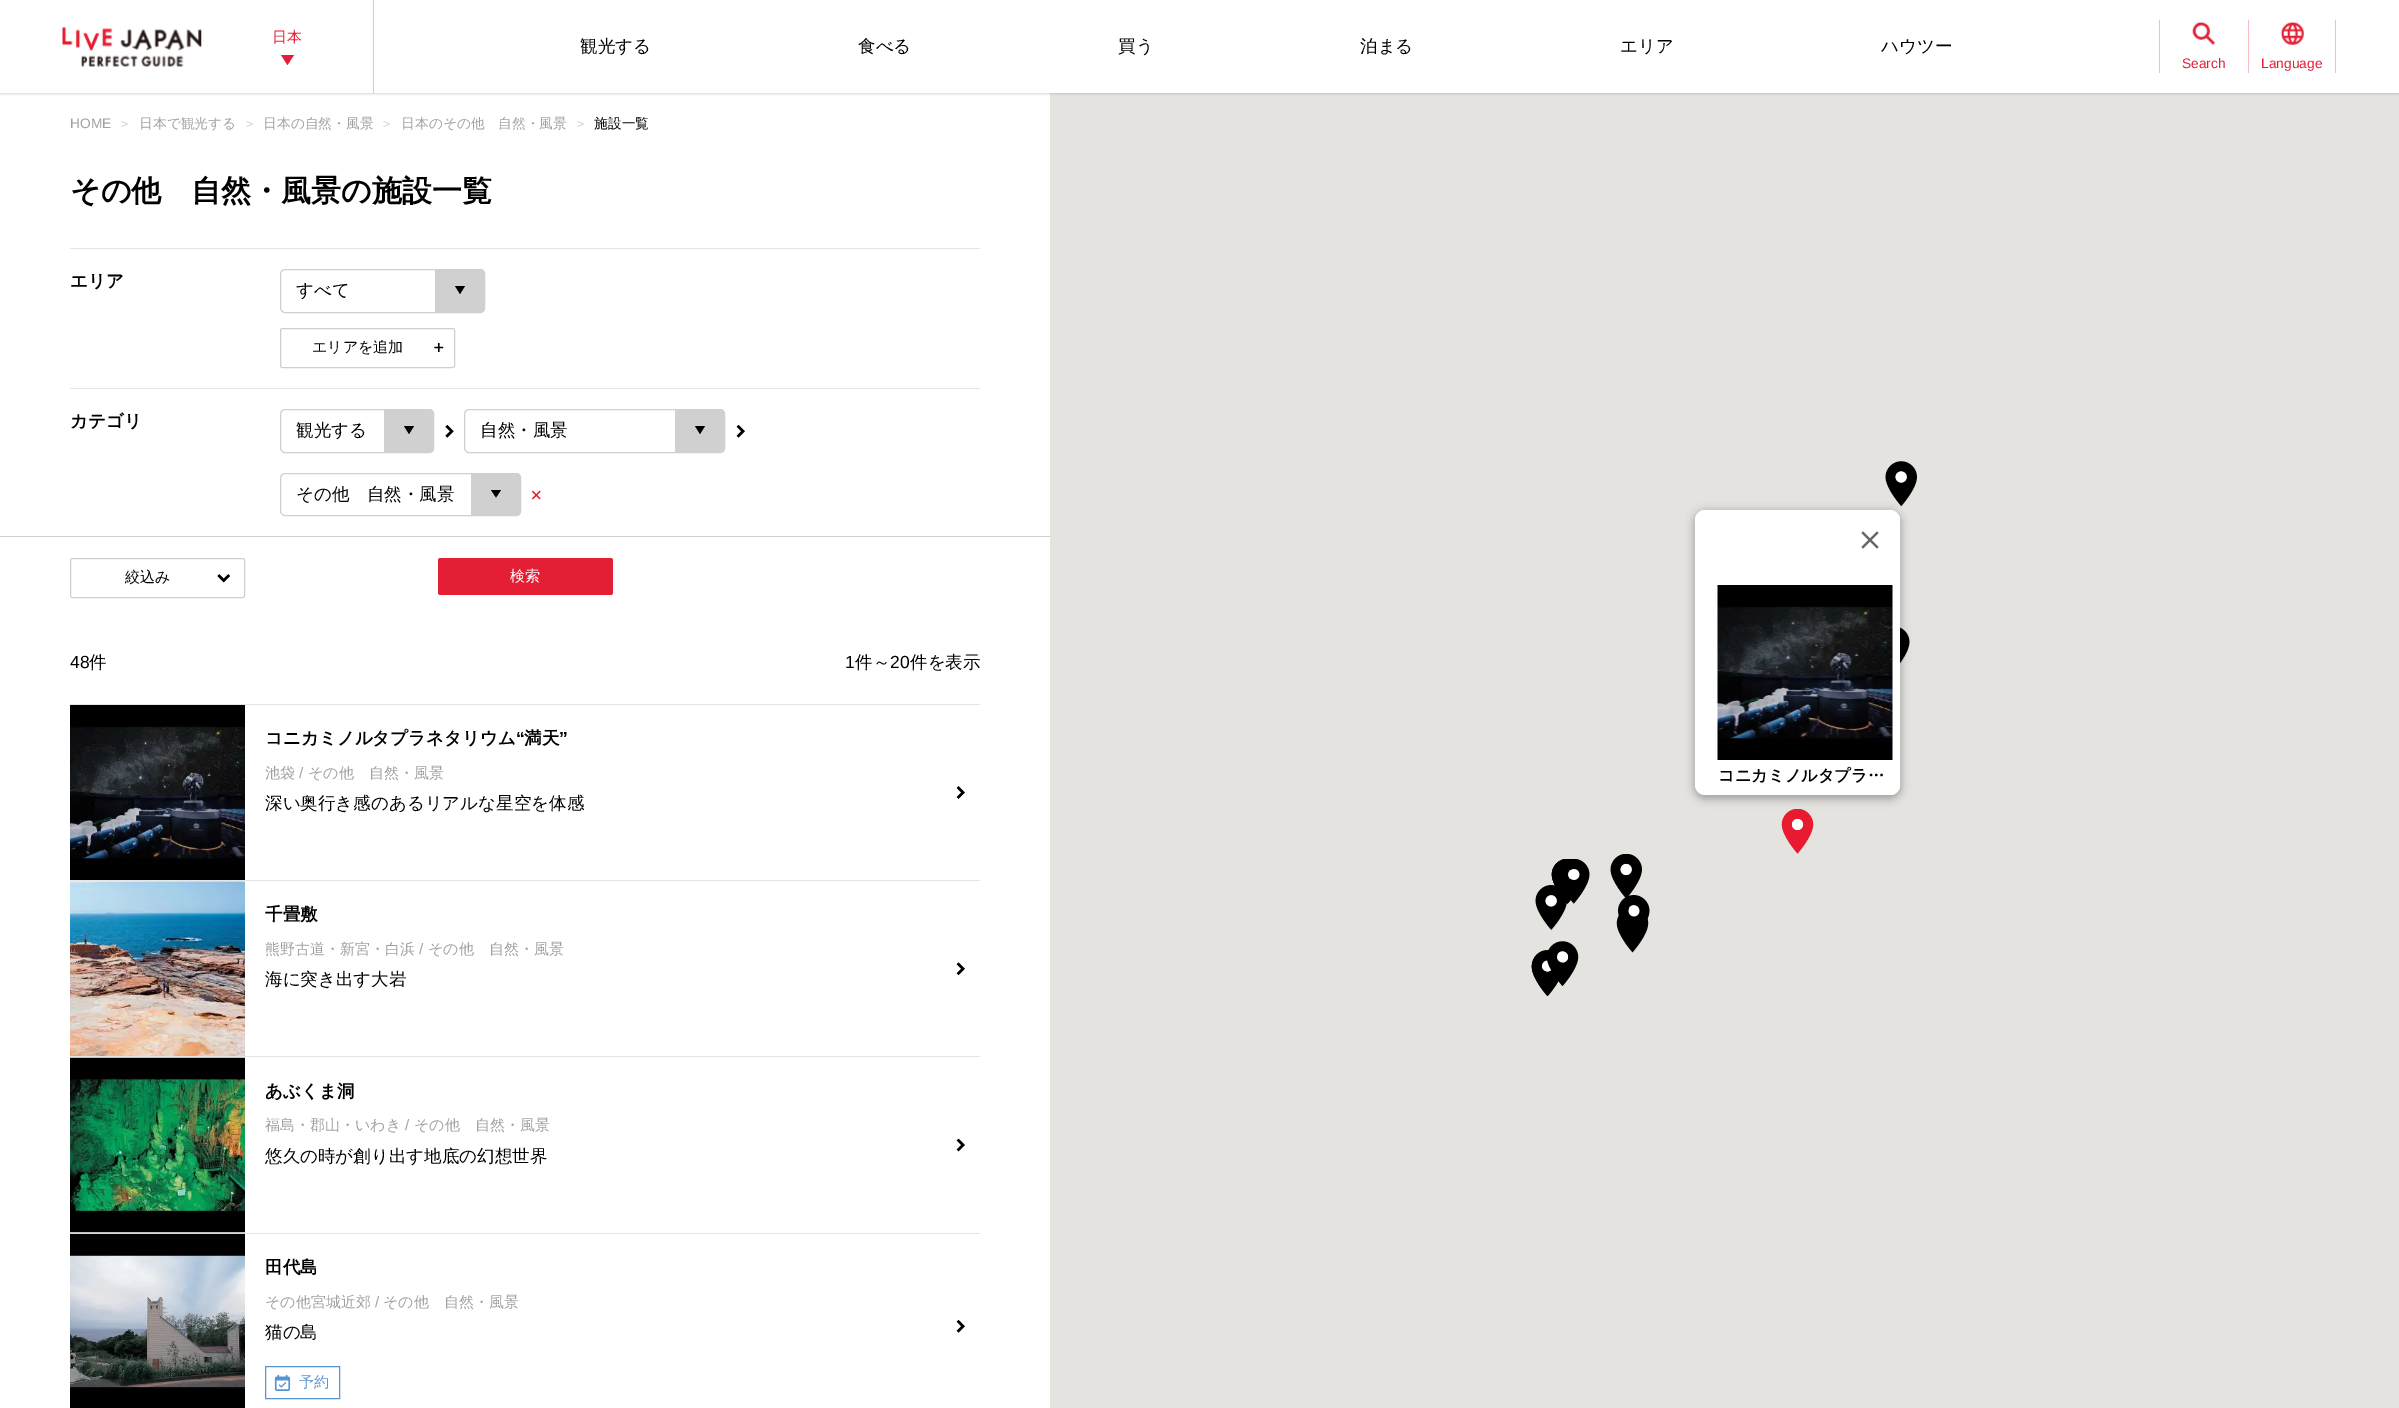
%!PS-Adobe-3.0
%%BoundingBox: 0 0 2399 1408
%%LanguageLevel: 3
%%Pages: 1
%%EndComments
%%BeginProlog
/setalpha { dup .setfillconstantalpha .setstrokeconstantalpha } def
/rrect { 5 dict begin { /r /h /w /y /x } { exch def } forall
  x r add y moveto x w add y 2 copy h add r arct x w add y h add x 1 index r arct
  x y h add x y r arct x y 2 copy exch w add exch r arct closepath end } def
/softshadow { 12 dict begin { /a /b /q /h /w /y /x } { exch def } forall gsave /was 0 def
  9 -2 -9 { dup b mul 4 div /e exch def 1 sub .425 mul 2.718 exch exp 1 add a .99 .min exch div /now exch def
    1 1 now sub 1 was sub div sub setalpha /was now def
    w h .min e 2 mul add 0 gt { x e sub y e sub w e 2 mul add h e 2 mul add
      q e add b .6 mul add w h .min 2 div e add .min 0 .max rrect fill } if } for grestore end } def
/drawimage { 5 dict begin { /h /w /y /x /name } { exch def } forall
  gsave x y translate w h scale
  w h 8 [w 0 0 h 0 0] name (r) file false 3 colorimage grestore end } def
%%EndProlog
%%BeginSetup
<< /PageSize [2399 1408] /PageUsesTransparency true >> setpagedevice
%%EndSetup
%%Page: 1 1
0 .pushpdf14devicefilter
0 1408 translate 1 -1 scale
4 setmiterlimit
1 setgray
0 0 2399 1408 rectfill
0.898 0.89 0.875 setrgbcolor
1050 93 1349 1315 rectfill
0.196 setgray
-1 -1 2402 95 0 1 0.2 softshadow
1 setgray
0 0 2399 93 rectfill
(images/1.raw) 62 27 140 40 drawimage
0.894 0.122 0.208 setrgbcolor
newpath 281 55 moveto 294 55 lineto 287.5 65 lineto closepath fill
0.969 0.733 0.761 setrgbcolor
373 0 1 93 rectfill
2159 20 1 53 rectfill
(images/2.raw) 2192 21 23 24 drawimage
2335 20 1 53 rectfill
2248 20 1 53 rectfill
(images/3.raw) 2280 21 24 24 drawimage
0.898 setgray
70 248 910 1 rectfill
70 388 910 1 rectfill
0.816 setgray
newpath 435 269 moveto 480 269 lineto 483 269 485 271 485 274 curveto 485 308 lineto 485 311 483 313 480 313 curveto 435 313 lineto closepath fill
0 setgray
newpath 455 286 moveto 465 286 lineto 460 294 lineto closepath fill
0.816 setgray
280.5 269.5 204 43 4.5 rrect stroke
0.812 setgray
280.5 328.5 174 39 2 rrect stroke
(images/4.raw) 434 343 10 9 drawimage
0.816 setgray
newpath 384 409 moveto 429 409 lineto 432 409 434 411 434 414 curveto 434 448 lineto 434 451 432 453 429 453 curveto 384 453 lineto closepath fill
0 setgray
newpath 404 426 moveto 414 426 lineto 409 434 lineto closepath fill
0.816 setgray
280.5 409.5 153 43 4.5 rrect stroke
(images/5.raw) 445 425 9 13 drawimage
newpath 675 409 moveto 720 409 lineto 723 409 725 411 725 414 curveto 725 448 lineto 725 451 723 453 720 453 curveto 675 453 lineto closepath fill
0 setgray
newpath 695 426 moveto 705 426 lineto 700 434 lineto closepath fill
0.816 setgray
464.5 409.5 260 43 4.5 rrect stroke
(images/6.raw) 736 425 9 13 drawimage
newpath 471 473 moveto 516 473 lineto 519 473 521 475 521 478 curveto 521 511 lineto 521 514 519 516 516 516 curveto 471 516 lineto closepath fill
0 setgray
newpath 491 490 moveto 501 490 lineto 496 497.5 lineto closepath fill
0.816 setgray
280.5 473.5 240 42 4.5 rrect stroke
(images/7.raw) 531 490 10 10 drawimage
0.812 setgray
0 536 1050 1 rectfill
70.5 558.5 174 39 2 rrect stroke
(images/8.raw) 217 574 13 9 drawimage
0.894 0.122 0.208 setrgbcolor
438 558 175 37 2.5 rrect fill
0.898 setgray
70 704 910 1 rectfill
70 880 910 1 rectfill
(images/9.raw) 70 705 175 175 drawimage
(images/10.raw) 956 786 9 13 drawimage
(images/11.raw) 70 881 175 175 drawimage
(images/12.raw) 956 962 9 14 drawimage
70 1056 910 1 rectfill
70 1233 910 1 rectfill
(images/13.raw) 70 1057 175 176 drawimage
(images/14.raw) 956 1138 9 14 drawimage
(images/15.raw) 70 1233 175 175 drawimage
0.349 0.576 0.827 setrgbcolor
265.5 1366.5 74 32 rectstroke
(images/16.raw) 274 1375 17 16 drawimage
(images/6.raw) 956 1320 9 13 drawimage
(images/17.raw) 1885 461 32 45 drawimage
(images/18.raw) 1900 627 10 37 drawimage
(images/19.raw) 1781 809 33 45 drawimage
(images/24.raw) 1535 885 32 45 drawimage
(images/20.raw) 1551 859 20 45 drawimage
(images/21.raw) 1610 854 32 44 drawimage
(images/22.raw) 1551 859 20 45 drawimage
(images/23.raw) 1551 859 29 45 drawimage
(images/25.raw) 1562 859 28 45 drawimage
(images/27.raw) 1616 908 33 45 drawimage
(images/26.raw) 1618 895 32 34 drawimage
(images/30.raw) 1531 953 32 43 drawimage
(images/31.raw) 1531 953 32 43 drawimage
(images/29.raw) 1531 950 32 25 drawimage
(images/28.raw) 1547 941 32 45 drawimage
0 setgray
1694 511 207 288 11 4.5 0.3 softshadow
1 setgray
1695 510 205 285 10 rrect fill
(images/32.raw) 1861 531 18 18 drawimage
newpath 1712.5 570 moveto 1897.5 570 lineto 1899 570 1900 571 1900 572.5 curveto 1900 785 lineto 1900 790.5 1895.5 795 1890 795 curveto 1712.5 795 lineto 1711 795 1710 794 1710 792.5 curveto 1710 572.5 lineto 1710 571 1711 570 1712.5 570 curveto closepath fill
(images/33.raw) 1717 585 176 175 drawimage
/WenQuanYiZenHei-Medium [15 0 0 -15 0 0] selectfont
0.894 0.122 0.208 setrgbcolor
272 42 moveto (日本) show
/WenQuanYiZenHei-Medium [17.5 0 0 -17.5 0 0] selectfont
0 setgray
580 52 moveto (観光する) show
858 52 moveto (食べる) show
1118 52 moveto (買う) show
1360 52 moveto (泊まる) show
1620 52 moveto (エリア) show
1881 52 moveto (ハウツー) show
/LiberationSans-Regular [13.75 0 0 -13.75 0 0] selectfont
0.894 0.122 0.208 setrgbcolor
2182 68 moveto (Search) show
2261 68 moveto (Language) show
0.627 setgray
70 128 moveto (HOME) show
/LiberationSans-Regular [12 0 0 -12 0 0] selectfont
0.8 setgray
121 128 moveto (>) show
/WenQuanYiZenHei-Medium [13.75 0 0 -13.75 0 0] selectfont
0.627 setgray
139 128 moveto (日本で観光する) show
/LiberationSans-Regular [12 0 0 -12 0 0] selectfont
0.8 setgray
246 128 moveto (>) show
/WenQuanYiZenHei-Medium [13.75 0 0 -13.75 0 0] selectfont
0.627 setgray
263 128 moveto (日本の自然・風景) show
/LiberationSans-Regular [12 0 0 -12 0 0] selectfont
0.8 setgray
383 128 moveto (>) show
/WenQuanYiZenHei-Medium [13.75 0 0 -13.75 0 0] selectfont
0.627 setgray
401 128 moveto (日本のその他　自然・風景) show
/LiberationSans-Regular [12 0 0 -12 0 0] selectfont
0.8 setgray
577 128 moveto (>) show
/WenQuanYiZenHei-Medium [13.75 0 0 -13.75 0 0] selectfont
0 setgray
594 128 moveto (施設一覧) show
/WenQuanYiZenHei-Bold [30 0 0 -30 0 0] selectfont
70 201 moveto (その他　自然・風景の施設一覧) show
/WenQuanYiZenHei-Bold [17.5 0 0 -17.5 0 0] selectfont
70 287 moveto (エリア) show
/WenQuanYiZenHei-Medium [17.5 0 0 -17.5 0 0] selectfont
296 296 moveto (すべて) show
/WenQuanYiZenHei-Medium [15 0 0 -15 0 0] selectfont
312 352 moveto (エリアを追加) show
/WenQuanYiZenHei-Bold [17.5 0 0 -17.5 0 0] selectfont
70 427 moveto (カテゴリ) show
/WenQuanYiZenHei-Medium [17.5 0 0 -17.5 0 0] selectfont
296 436 moveto (観光する) show
480 436 moveto (自然・風景) show
296 500 moveto (その他　自然・風景) show
/WenQuanYiZenHei-Medium [15 0 0 -15 0 0] selectfont
125 582 moveto (絞込み) show
1 setgray
510 581 moveto (検索) show
/LiberationSans-Regular [17.5 0 0 -17.5 0 0] selectfont
0 setgray
70 668 moveto (48) show
/WenQuanYiZenHei-Medium [17.5 0 0 -17.5 0 0] selectfont
89 668 moveto (件) show
/LiberationSans-Regular [17.5 0 0 -17.5 0 0] selectfont
845 668 moveto (1) show
/WenQuanYiZenHei-Medium [17.5 0 0 -17.5 0 0] selectfont
855 668 moveto (件～) show
/LiberationSans-Regular [17.5 0 0 -17.5 0 0] selectfont
890 668 moveto (20) show
/WenQuanYiZenHei-Medium [17.5 0 0 -17.5 0 0] selectfont
910 668 moveto (件を表示) show
/WenQuanYiZenHei-Bold [17.5 0 0 -17.5 0 0] selectfont
265 744 moveto (コニカミノルタプラネタリウム) show
/LiberationSans-Bold [17.5 0 0 -17.5 0 0] selectfont
516 744 moveto (“) show
/WenQuanYiZenHei-Bold [17.5 0 0 -17.5 0 0] selectfont
524 744 moveto (満天) show
/LiberationSans-Bold [17.5 0 0 -17.5 0 0] selectfont
559 744 moveto (”) show
/WenQuanYiZenHei-Medium [15 0 0 -15 0 0] selectfont
0.627 setgray
265 778 moveto (池袋) show
/LiberationSans-Regular [15 0 0 -15 0 0] selectfont
299 778 moveto (/) show
/WenQuanYiZenHei-Medium [15 0 0 -15 0 0] selectfont
308 778 moveto (その他　自然・風景) show
/WenQuanYiZenHei-Medium [17.5 0 0 -17.5 0 0] selectfont
0 setgray
265 809 moveto (深い奥行き感のあるリアルな星空を体感) show
/WenQuanYiZenHei-Bold [17.5 0 0 -17.5 0 0] selectfont
265 920 moveto (千畳敷) show
/WenQuanYiZenHei-Medium [15 0 0 -15 0 0] selectfont
0.627 setgray
265 954 moveto (熊野古道・新宮・白浜) show
/LiberationSans-Regular [15 0 0 -15 0 0] selectfont
419 954 moveto (/) show
/WenQuanYiZenHei-Medium [15 0 0 -15 0 0] selectfont
428 954 moveto (その他　自然・風景) show
/WenQuanYiZenHei-Medium [17.5 0 0 -17.5 0 0] selectfont
0 setgray
265 985 moveto (海に突き出す大岩) show
/WenQuanYiZenHei-Bold [17.5 0 0 -17.5 0 0] selectfont
265 1097 moveto (あぶくま洞) show
/WenQuanYiZenHei-Medium [15 0 0 -15 0 0] selectfont
0.627 setgray
265 1130 moveto (福島・郡山・いわき) show
/LiberationSans-Regular [15 0 0 -15 0 0] selectfont
405 1130 moveto (/) show
/WenQuanYiZenHei-Medium [15 0 0 -15 0 0] selectfont
414 1130 moveto (その他　自然・風景) show
/WenQuanYiZenHei-Medium [17.5 0 0 -17.5 0 0] selectfont
0 setgray
265 1162 moveto (悠久の時が創り出す地底の幻想世界) show
/WenQuanYiZenHei-Bold [17.5 0 0 -17.5 0 0] selectfont
265 1273 moveto (田代島) show
/WenQuanYiZenHei-Medium [15 0 0 -15 0 0] selectfont
0.627 setgray
265 1307 moveto (その他宮城近郊) show
/LiberationSans-Regular [15 0 0 -15 0 0] selectfont
375 1307 moveto (/) show
/WenQuanYiZenHei-Medium [15 0 0 -15 0 0] selectfont
383 1307 moveto (その他　自然・風景) show
/WenQuanYiZenHei-Medium [17.5 0 0 -17.5 0 0] selectfont
0 setgray
265 1338 moveto (猫の島) show
/WenQuanYiZenHei-Medium [15 0 0 -15 0 0] selectfont
0.349 0.576 0.827 setrgbcolor
299 1387 moveto (予約) show
/WenQuanYiZenHei-Bold [16.25 0 0 -16.25 0 0] selectfont
0 setgray
1718 781 moveto (コニカミノルタプラ…) show
.poppdf14devicefilter showpage
%%EOF
